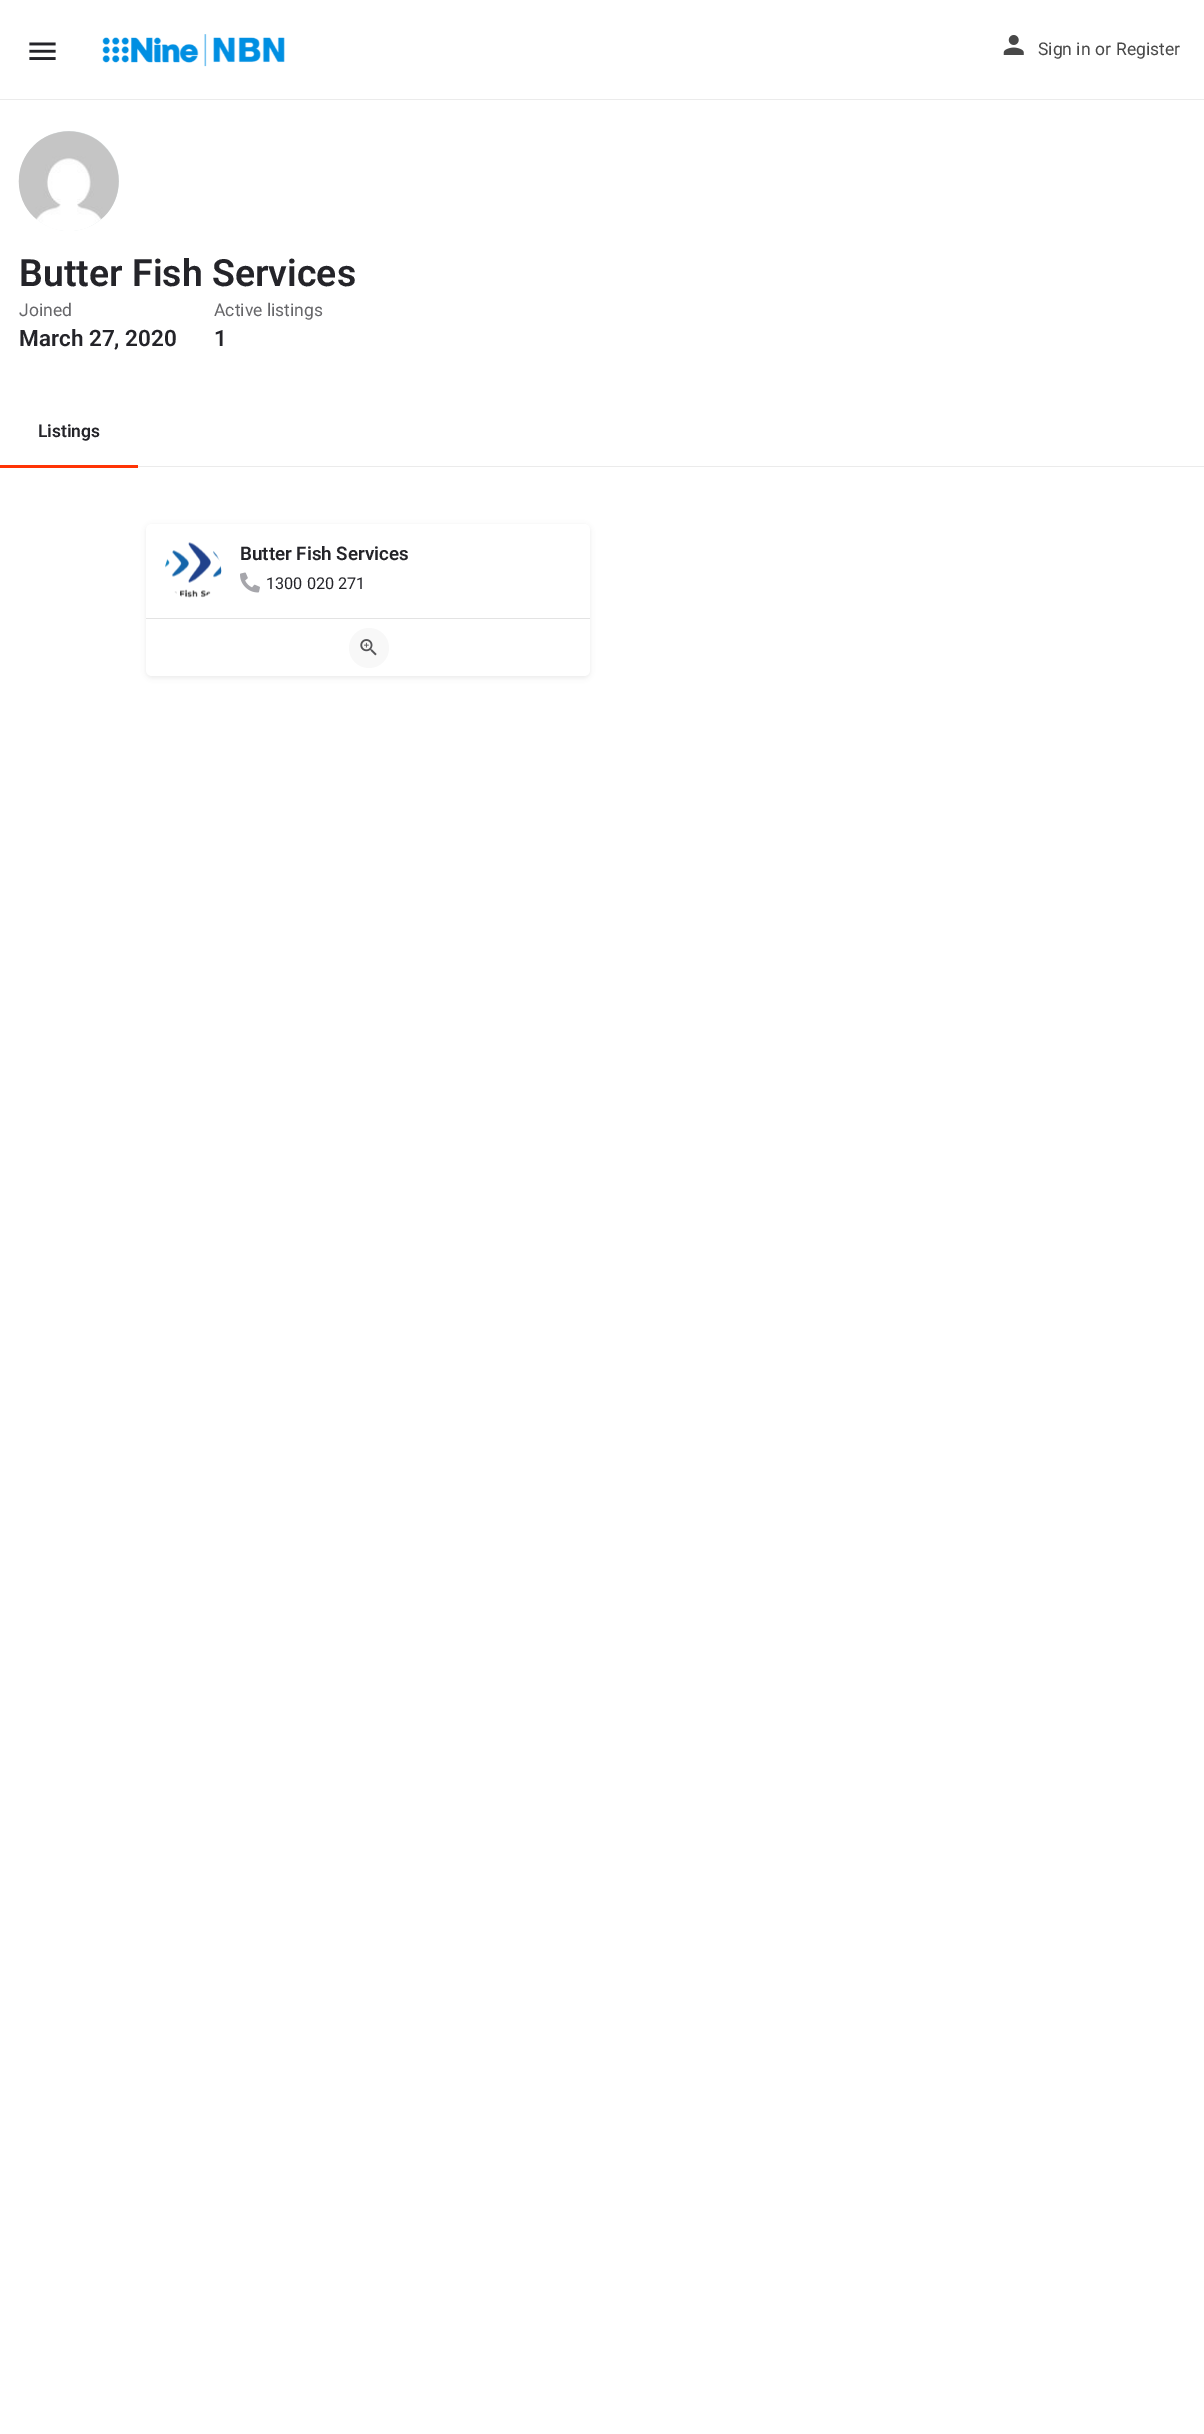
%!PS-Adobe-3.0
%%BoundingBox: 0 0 1204 2434
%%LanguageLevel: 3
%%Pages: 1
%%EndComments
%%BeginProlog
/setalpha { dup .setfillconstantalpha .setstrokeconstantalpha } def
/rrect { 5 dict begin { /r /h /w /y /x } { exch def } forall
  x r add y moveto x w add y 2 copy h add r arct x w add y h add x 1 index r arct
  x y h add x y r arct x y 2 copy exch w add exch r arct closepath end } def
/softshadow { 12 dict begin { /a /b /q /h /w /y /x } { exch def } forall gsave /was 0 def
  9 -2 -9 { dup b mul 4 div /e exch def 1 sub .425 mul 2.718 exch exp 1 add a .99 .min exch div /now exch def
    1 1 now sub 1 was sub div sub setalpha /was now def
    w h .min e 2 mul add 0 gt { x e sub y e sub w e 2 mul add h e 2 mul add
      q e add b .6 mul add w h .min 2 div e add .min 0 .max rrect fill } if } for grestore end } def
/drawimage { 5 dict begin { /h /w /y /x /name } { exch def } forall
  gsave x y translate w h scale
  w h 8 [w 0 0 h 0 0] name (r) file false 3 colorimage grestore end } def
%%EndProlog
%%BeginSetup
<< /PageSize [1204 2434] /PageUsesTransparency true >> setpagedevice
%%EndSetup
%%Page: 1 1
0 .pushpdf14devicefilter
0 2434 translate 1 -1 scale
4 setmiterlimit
1 setgray
0 0 1204 2434 rectfill
(images/1.raw) 29 42 27 18 drawimage
(images/2.raw) 102 34 183 33 drawimage
(images/3.raw) 1003 35 21 20 drawimage
0.922 setgray
0 99 1204 1 rectfill
138 466 1066 1 rectfill
0.867 0.898 0.902 setrgbcolor
newpath 69 181 50 0 360 arc closepath fill
(images/4.raw) 18 131 101 100 drawimage
1 0.204 0.02 setrgbcolor
0 465 138 3 rectfill
0 setgray
146 525 444 153 6 2.5 0.07 softshadow
1 setgray
newpath 152 524 moveto 584 524 lineto 587.5 524 590 526.5 590 530 curveto 590 618 lineto 146 618 lineto 146 530 lineto 146 526.5 148.5 524 152 524 curveto closepath fill
(images/5.raw) 165 542 57 56 drawimage
(images/6.raw) 240 572 20 21 drawimage
newpath 146 618 moveto 590 618 lineto 590 670 lineto 590 673.5 587.5 676 584 676 curveto 152 676 lineto 148.5 676 146 673.5 146 670 curveto closepath fill
0.89 setgray
146 618 444 1 rectfill
0.973 setgray
newpath 369 648 20 0 360 arc closepath fill
(images/7.raw) 360 639 17 17 drawimage
/Roboto-Regular [17.5 0 0 -17.5 0 0] selectfont
0.282 setgray
1038 55 moveto (Sign in) show
1095 55 moveto (or) show
1116 55 moveto (Register) show
/Roboto-SemiBold [37.5 0 0 -37.5 0 0] selectfont
0.141 0.141 0.161 setrgbcolor
19 286 moveto (Butter Fish Services) show
/Roboto-Regular [17.5 0 0 -17.5 0 0] selectfont
0.4 0.4 0.412 setrgbcolor
19 316 moveto (Joined) show
/Roboto-SemiBold [22.5 0 0 -22.5 0 0] selectfont
0.141 0.141 0.161 setrgbcolor
19 346 moveto (March 27, 2020) show
/Roboto-Regular [17.5 0 0 -17.5 0 0] selectfont
0.4 0.4 0.412 setrgbcolor
214 316 moveto (Active listings) show
/Roboto-SemiBold [22.5 0 0 -22.5 0 0] selectfont
0.141 0.141 0.161 setrgbcolor
214 346 moveto (1) show
/Roboto-SemiBold [17.5 0 0 -17.5 0 0] selectfont
38 437 moveto (Listings) show
/Roboto-SemiBold [18.75 0 0 -18.75 0 0] selectfont
240 560 moveto (Butter Fish Services) show
/Roboto-Regular [16.25 0 0 -16.25 0 0] selectfont
266 589 moveto (1300 020 271) show
.poppdf14devicefilter showpage
%%EOF
